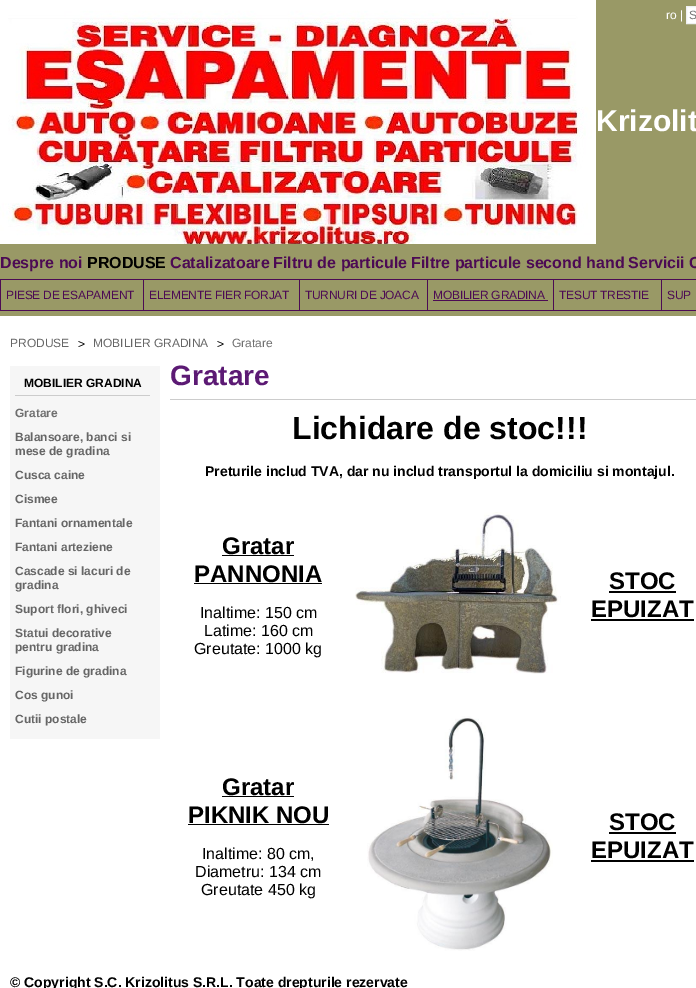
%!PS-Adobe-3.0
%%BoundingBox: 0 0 696 988
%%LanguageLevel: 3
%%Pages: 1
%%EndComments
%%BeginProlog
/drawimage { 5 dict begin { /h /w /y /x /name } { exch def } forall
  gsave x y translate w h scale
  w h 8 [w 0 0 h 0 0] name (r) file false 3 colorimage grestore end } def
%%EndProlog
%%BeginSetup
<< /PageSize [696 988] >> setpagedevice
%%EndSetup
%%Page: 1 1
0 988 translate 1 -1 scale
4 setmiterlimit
0.6 0.6 0.4 setrgbcolor
0 0 696 988 rectfill
1 setgray
newpath 686.5 6.5 moveto 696.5 6.5 lineto 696.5 23.5 lineto 686.5 23.5 lineto closepath gsave fill grestore
0.937 0.941 0.949 setrgbcolor
stroke
(images/1.raw) 0 0 596 244 drawimage
0.298 0.039 0.329 setrgbcolor
0 279 696 1 rectfill
143 280 1 31 rectfill
0 310 144 1 rectfill
0 280 1 31 rectfill
299 280 1 31 rectfill
144 310 156 1 rectfill
427 280 1 31 rectfill
300 310 128 1 rectfill
553 280 1 31 rectfill
428 310 126 1 rectfill
433 300 115 1 rectfill
661 280 1 31 rectfill
554 310 142 1 rectfill
1 setgray
0 316 696 672 rectfill
0.965 setgray
10 366 150 373 rectfill
0.8 setgray
15 395 135 1 rectfill
170 399 526 1 rectfill
0 setgray
222 555 72 1 rectfill
194 583 128 1 rectfill
(images/2.raw) 355 512 206 162 drawimage
609 591 67 2 rectfill
591 619 103 2 rectfill
222 796 72 1 rectfill
188 824 141 1 rectfill
(images/3.raw) 367 716 186 235 drawimage
609 832 67 2 rectfill
591 860 103 2 rectfill
/LiberationSans-Regular [12 0 0 -12 0 0] selectfont
1 setgray
666 19 moveto (ro) show
680 19 moveto (|) show
0.467 setgray
689 19 moveto (S) show
/LiberationSans-Bold [30 0 0 -30 0 0] selectfont
1 setgray
596 131 moveto (Krizolit) show
/LiberationSans-Bold [16 0 0 -16 0 0] selectfont
0.298 0.039 0.329 setrgbcolor
0 268 moveto (Despre noi) show
0 setgray
87 268 moveto (PRODUSE) show
0.298 0.039 0.329 setrgbcolor
170 268 moveto (Catalizatoare) show
273 268 moveto (Filtru de particule) show
411 268 moveto (Filtre particule second hand) show
628 268 moveto (Servicii) show
689 268 moveto (C) show
/LiberationSans-Regular [12 0 0 -12 0 0] selectfont
6 299 moveto -0.25 0 (PIESE DE ESAPAMENT) ashow
149 299 moveto -0.25 0 (ELEMENTE FIER FORJAT) ashow
305 299 moveto -0.25 0 (TURNURI DE JOACA) ashow
433 299 moveto -0.25 0 (MOBILIER GRADINA) ashow
559 299 moveto -0.25 0 (TESUT TRESTIE) ashow
667 299 moveto -0.25 0 (SUP) ashow
0.4 setgray
10 347 moveto (PRODUSE) show
0 setgray
78 348 moveto (>) show
0.4 setgray
93 347 moveto (MOBILIER GRADINA) show
0 setgray
217 348 moveto (>) show
0.435 setgray
232 347 moveto (Gratare) show
/LiberationSans-Bold [12 0 0 -12 0 0] selectfont
0 setgray
24 387 moveto (MOBILIER GRADINA) show
0.435 setgray
15 417 moveto (Gratare) show
0.4 setgray
15 441 moveto (Balansoare, banci si) show
15 455 moveto (mese de gradina) show
15 479 moveto (Cusca caine) show
15 503 moveto (Cismee) show
15 527 moveto (Fantani ornamentale) show
15 551 moveto (Fantani arteziene) show
15 575 moveto (Cascade si lacuri de) show
15 589 moveto (gradina) show
15 613 moveto (Suport flori, ghiveci) show
15 637 moveto (Statui decorative) show
15 651 moveto (pentru gradina) show
15 675 moveto (Figurine de gradina) show
15 699 moveto (Cos gunoi) show
15 723 moveto (Cutii postale) show
/LiberationSans-Bold [28 0 0 -28 0 0] selectfont
0.361 0.102 0.455 setrgbcolor
170 385 moveto (Gratare) show
/LiberationSans-Bold [32 0 0 -32 0 0] selectfont
0 setgray
292 439 moveto (Lichidare de stoc!!!) show
/LiberationSans-Bold [14 0 0 -14 0 0] selectfont
205 476 moveto (Preturile includ TVA, dar nu includ transportul la domiciliu si montajul.) show
/LiberationSans-Bold [24 0 0 -24 0 0] selectfont
222 554 moveto (Gratar) show
194 582 moveto (PANNONIA) show
/LiberationSans-Regular [16 0 0 -16 0 0] selectfont
200 618 moveto (Inaltime: 150 cm) show
204 636 moveto (Latime: 160 cm) show
194 654 moveto (Greutate: 1000 kg) show
/LiberationSans-Bold [24 0 0 -24 0 0] selectfont
609 589 moveto (STOC) show
591 617 moveto (EPUIZAT) show
222 795 moveto (Gratar) show
188 823 moveto (PIKNIK NOU) show
/LiberationSans-Regular [16 0 0 -16 0 0] selectfont
202 859 moveto (Inaltime: 80 cm,) show
195 877 moveto (Diametru: 134 cm) show
201 895 moveto (Greutate 450 kg) show
/LiberationSans-Bold [24 0 0 -24 0 0] selectfont
609 830 moveto (STOC) show
591 858 moveto (EPUIZAT) show
/LiberationSans-Bold [14 0 0 -14 0 0] selectfont
10 987 moveto (© Copyright S.C. Krizolitus S.R.L. Toate drepturile rezervate) show
showpage
%%EOF
